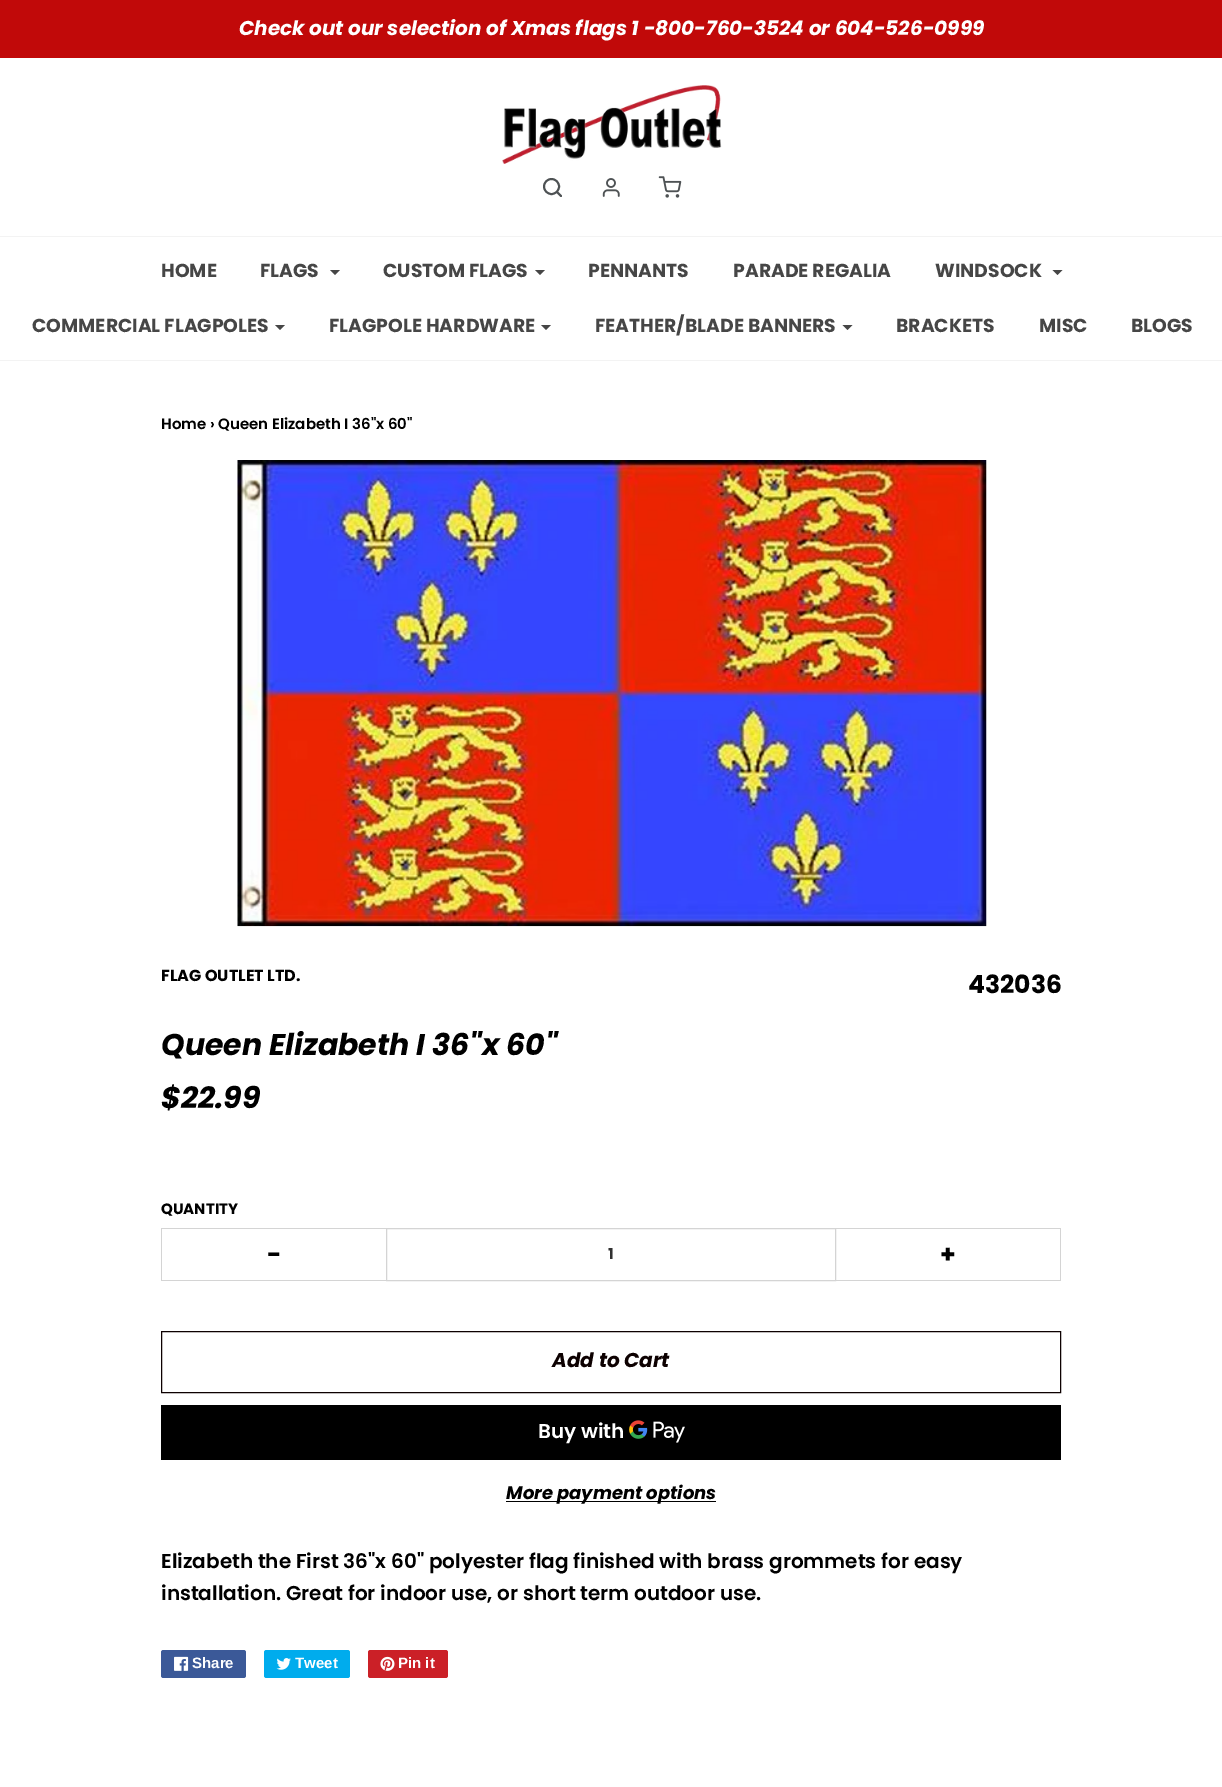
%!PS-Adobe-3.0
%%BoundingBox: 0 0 1222 1787
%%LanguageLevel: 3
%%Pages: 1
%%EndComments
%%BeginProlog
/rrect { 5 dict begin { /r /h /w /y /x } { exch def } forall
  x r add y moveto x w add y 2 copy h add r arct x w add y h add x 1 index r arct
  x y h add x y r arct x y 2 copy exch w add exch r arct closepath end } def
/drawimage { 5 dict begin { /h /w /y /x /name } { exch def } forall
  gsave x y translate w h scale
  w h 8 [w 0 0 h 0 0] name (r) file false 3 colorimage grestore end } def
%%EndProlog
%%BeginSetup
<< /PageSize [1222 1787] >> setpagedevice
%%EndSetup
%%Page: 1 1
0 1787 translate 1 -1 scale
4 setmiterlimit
1 setgray
0 0 1222 1787 rectfill
0.757 0.035 0.035 setrgbcolor
0 0 1222 58 rectfill
(images/1.raw) 502 85 220 79 drawimage
0.306 0.322 0.329 setrgbcolor
1.9 setlinewidth
newpath 551.5 186.5 7.5 0 360 arc closepath stroke
1 setlinecap
1 setlinejoin
newpath 561 196 moveto 557 192 lineto stroke
(images/2.raw) 602 178 18 19 drawimage
(images/3.raw) 658 176 24 22 drawimage
0.953 setgray
0 236 1222 1 rectfill
0 360 1222 1 rectfill
0.275 setgray
newpath 330 270 moveto 340 270 lineto 335 275 lineto closepath fill
newpath 535 270 moveto 545 270 lineto 540 275 lineto closepath fill
newpath 1052.5 270 moveto 1062.5 270 lineto 1057.5 275 lineto closepath fill
newpath 275 325 moveto 285 325 lineto 280 330 lineto closepath fill
newpath 541 325 moveto 551 325 lineto 546 330 lineto closepath fill
newpath 842.5 325 moveto 852.5 325 lineto 847.5 330 lineto closepath fill
(images/4.raw) 237 460 750 467 drawimage
0.831 setgray
161 1228 225 1 rectfill
161 1280 225 1 rectfill
161 1228 1 53 rectfill
1 setlinewidth
0 setlinecap
0 setlinejoin
386.5 1228.5 449 52 rectstroke
836 1228 225 1 rectfill
1060 1228 1 53 rectfill
836 1280 225 1 rectfill
0.051 0.004 0.004 setrgbcolor
161.5 1331.5 899 61 rectstroke
0 setgray
161 1405 900 55 rectfill
(images/5.raw) 629 1420 56 23 drawimage
506 1501 210 1 rectfill
0.231 0.349 0.596 setrgbcolor
161 1650 85 28 2.5 rrect fill
(images/6.raw) 174 1656 15 15 drawimage
0 0.675 0.929 setrgbcolor
264 1650 86 28 2.5 rrect fill
(images/7.raw) 276 1658 15 12 drawimage
0.796 0.125 0.153 setrgbcolor
368 1650 80 28 2.5 rrect fill
(images/8.raw) 380 1656 15 15 drawimage
/Poppins-BoldItalic [20 0 0 -20 0 0] selectfont
1 setgray
239 35 moveto (Check out our selection of Xmas flags 1 -800-760-3524 or 604-526-0999) show
/Poppins-Bold [18.75 0 0 -18.75 0 0] selectfont
0.275 setgray
161 277 moveto (HOME) show
260 277 moveto (FLAGS) show
383 277 moveto (CUSTOM FLAGS) show
588 277 moveto (PENNANTS) show
733 277 moveto (PARADE REGALIA) show
935 277 moveto (WINDSOCK) show
32 332 moveto (COMMERCIAL FLAGPOLES) show
329 332 moveto (FLAGPOLE HARDWARE) show
595 332 moveto (FEATHER/BLADE BANNERS) show
896 332 moveto (BRACKETS) show
1039 332 moveto (MISC) show
1131 332 moveto (BLOGS) show
/Poppins-SemiBold [15 0 0 -15 0 0] selectfont
0 setgray
161 429 moveto (Home › Queen Elizabeth I 36"x 60") show
/Poppins-Bold [16 0 0 -16 0 0] selectfont
161 981 moveto (FLAG OUTLET LTD.) show
/Poppins-Bold [25 0 0 -25 0 0] selectfont
968 993 moveto (432036) show
/Poppins-BoldItalic [30 0 0 -30 0 0] selectfont
161 1055 moveto (Queen Elizabeth I 36"x 60") show
161 1108 moveto ($22.99) show
/Poppins-Bold [15 0 0 -15 0 0] selectfont
161 1214 moveto (QUANTITY) show
/Poppins-Bold [25 0 0 -25 0 0] selectfont
267 1263 moveto (-) show
/Poppins-Bold [15 0 0 -15 0 0] selectfont
0.192 setgray
608 1259 moveto (1) show
/Poppins-Bold [25 0 0 -25 0 0] selectfont
0 setgray
940 1263 moveto (+) show
/Poppins-BoldItalic [20 0 0 -20 0 0] selectfont
0.051 0.004 0.004 setrgbcolor
552 1367 moveto (Add to Cart) show
/Poppins-SemiBold [20 0 0 -20 0 0] selectfont
1 setgray
538 1438 moveto (Buy with) show
/Poppins-BoldItalic [18 0 0 -18 0 0] selectfont
0 setgray
506 1499 moveto (More payment options) show
/Poppins-SemiBold [20 0 0 -20 0 0] selectfont
161 1568 moveto (Elizabeth the First 36"x 60" polyester flag finished with brass grommets for easy) show
161 1600 moveto (installation. Great for indoor use, or short term outdoor use.) show
/LiberationSans-Bold [15 0 0 -15 0 0] selectfont
1 setgray
192 1668 moveto (Share) show
295 1668 moveto (Tweet) show
398 1668 moveto (Pin it) show
showpage
%%EOF
